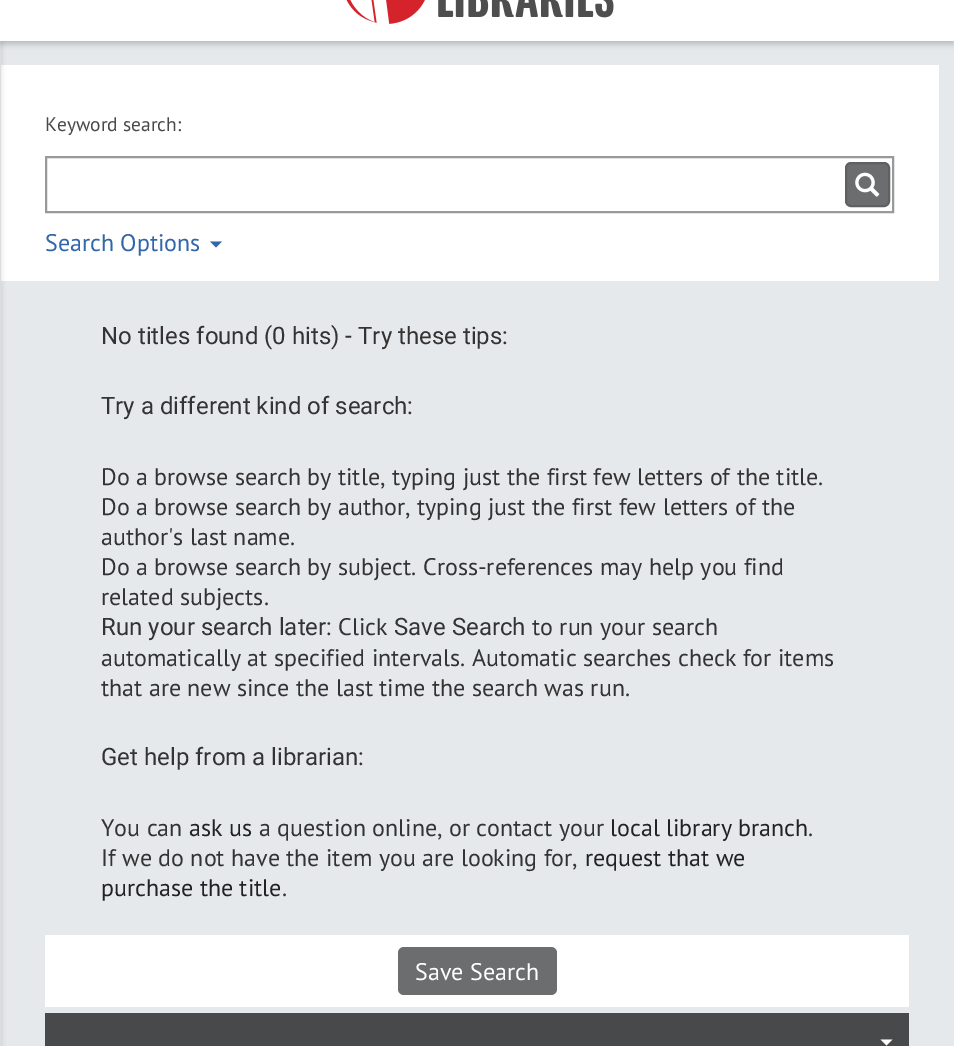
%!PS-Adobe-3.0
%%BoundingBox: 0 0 954 1046
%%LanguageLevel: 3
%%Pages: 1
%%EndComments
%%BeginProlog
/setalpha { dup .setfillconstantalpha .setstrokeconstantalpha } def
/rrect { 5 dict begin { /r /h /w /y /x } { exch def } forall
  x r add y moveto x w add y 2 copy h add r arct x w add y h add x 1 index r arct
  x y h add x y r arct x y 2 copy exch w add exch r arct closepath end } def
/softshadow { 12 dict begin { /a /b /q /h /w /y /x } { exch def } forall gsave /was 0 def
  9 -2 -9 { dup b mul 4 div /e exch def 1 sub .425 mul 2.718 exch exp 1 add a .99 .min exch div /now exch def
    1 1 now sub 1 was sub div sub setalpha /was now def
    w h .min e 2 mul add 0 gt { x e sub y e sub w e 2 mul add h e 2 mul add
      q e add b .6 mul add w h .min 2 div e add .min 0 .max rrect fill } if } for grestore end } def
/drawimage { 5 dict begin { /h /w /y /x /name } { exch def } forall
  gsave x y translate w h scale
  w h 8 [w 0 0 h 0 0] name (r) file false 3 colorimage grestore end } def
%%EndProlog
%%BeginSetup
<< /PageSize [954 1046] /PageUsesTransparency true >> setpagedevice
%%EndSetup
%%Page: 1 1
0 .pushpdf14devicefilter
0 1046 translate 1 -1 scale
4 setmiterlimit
0.898 0.914 0.925 setrgbcolor
0 0 954 1046 rectfill
1 setgray
1 65 938 216 rectfill
0 setgray
-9 -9 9 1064 0 3 0.2 softshadow
0.867 setgray
0 41 1 1005 rectfill
0 setgray
0 -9 954 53 0 3 0.2 softshadow
1 setgray
0 0 954 41 rectfill
(images/1.raw) 346 0 79 24 drawimage
(images/2.raw) 438 0 176 18 drawimage
0.6 setgray
2 setlinewidth
46 157 847 55 rectstroke
0.424 0.427 0.431 setrgbcolor
846 163 43 43 5 rrect gsave fill grestore
0.373 0.376 0.38 setrgbcolor
stroke
(images/3.raw) 855 172 25 25 drawimage
0.192 0.4 0.667 setrgbcolor
newpath 210 241.5 moveto 222 241.5 lineto 216 247.5 lineto closepath fill
1 setgray
45 935 864 72 rectfill
0.424 0.427 0.431 setrgbcolor
398 947 159 48 6 rrect fill
0.282 0.286 0.29 setrgbcolor
45 1013 864 33 rectfill
1 setgray
newpath 880.5 1039.5 moveto 892.5 1039.5 lineto 886.5 1045.5 lineto closepath fill
/PTSans-Regular [19.5 0 0 -19.5 0 0] selectfont
0.282 0.286 0.29 setrgbcolor
45 131 moveto (Keyword search:) show
/PTSans-Regular [24 0 0 -24 0 0] selectfont
0.192 0.4 0.667 setrgbcolor
45 251 moveto (Search Options) show
/Roboto-Regular [24 0 0 -24 0 0] selectfont
0.2 setgray
101 344 moveto (No titles found \(0 hits\) - Try these tips:) show
101 414 moveto (Try a different kind of search:) show
/PTSans-Regular [24 0 0 -24 0 0] selectfont
101 485 moveto (Do a browse search by title, typing just the first few letters of the title.) show
101 515 moveto (Do a browse search by author, typing just the first few letters of the) show
101 545 moveto (author's last name.) show
101 575 moveto (Do a browse search by subject. Cross-references may help you find) show
101 605 moveto (related subjects.) show
/Roboto-Regular [24 0 0 -24 0 0] selectfont
101 635 moveto (Run your search later:) show
/PTSans-Regular [24 0 0 -24 0 0] selectfont
338 635 moveto (Click) show
/Roboto-Regular [24 0 0 -24 0 0] selectfont
394 635 moveto (Save Search) show
/PTSans-Regular [24 0 0 -24 0 0] selectfont
532 635 moveto (to run your search) show
101 666 moveto (automatically at specified intervals. Automatic searches check for items) show
101 696 moveto (that are new since the last time the search was run.) show
/Roboto-Regular [24 0 0 -24 0 0] selectfont
101 765 moveto (Get help from a librarian:) show
/PTSans-Regular [24 0 0 -24 0 0] selectfont
101 836 moveto (You can) show
0.133 setgray
189 836 moveto (ask us) show
0.2 setgray
259 836 moveto (a question online, or contact your) show
0.133 setgray
610 836 moveto (local library branch) show
0.2 setgray
808 836 moveto (.) show
101 866 moveto (If we do not have the item you are looking for,) show
0.133 setgray
585 866 moveto (request that we) show
101 896 moveto (purchase the title) show
0.2 setgray
282 896 moveto (.) show
1 setgray
415 980 moveto (Save Search) show
.poppdf14devicefilter showpage
%%EOF
